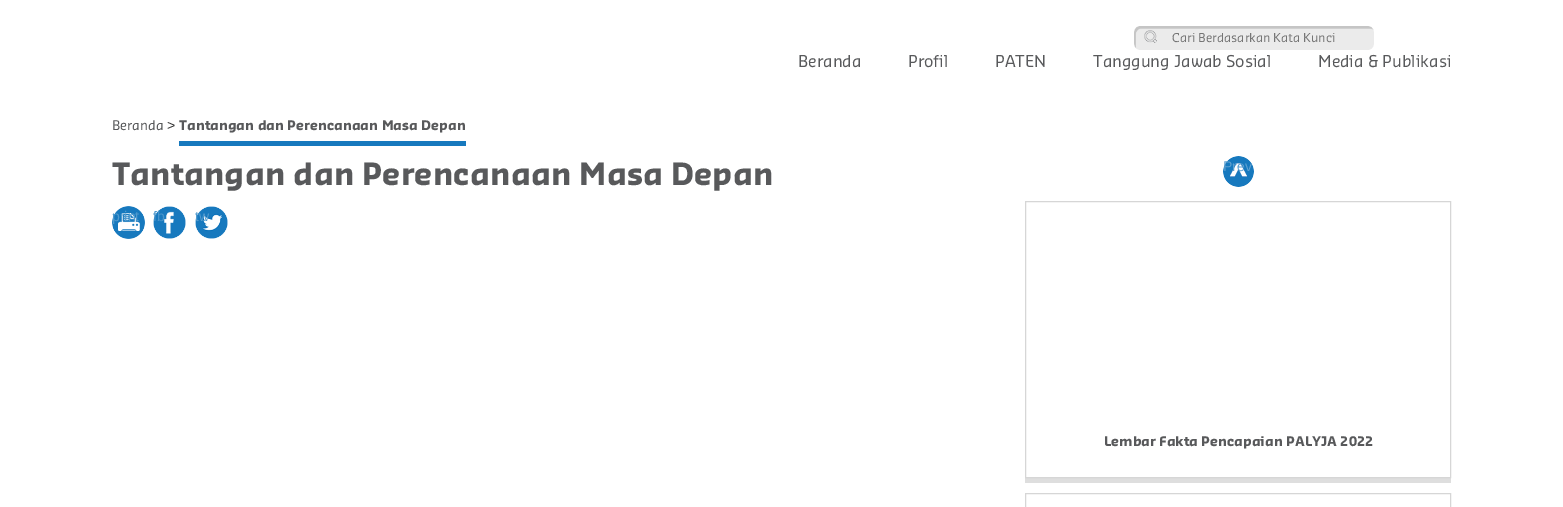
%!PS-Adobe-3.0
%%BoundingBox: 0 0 1563 507
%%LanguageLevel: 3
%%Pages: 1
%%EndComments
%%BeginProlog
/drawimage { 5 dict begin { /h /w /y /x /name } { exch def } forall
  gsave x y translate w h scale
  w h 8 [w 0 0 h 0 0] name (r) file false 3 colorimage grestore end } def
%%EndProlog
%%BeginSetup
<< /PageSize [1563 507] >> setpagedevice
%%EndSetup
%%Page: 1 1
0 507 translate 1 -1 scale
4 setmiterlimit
1 setgray
0 0 1563 507 rectfill
(images/2.raw) 1134 26 240 24 drawimage
(images/1.raw) 1144 30 13 13 drawimage
0.09 0.475 0.745 setrgbcolor
179 141 287 5 rectfill
(images/3.raw) 112 206 33 33 drawimage
(images/4.raw) 153 206 33 33 drawimage
(images/5.raw) 195 206 33 33 drawimage
(images/6.raw) 1223 156 31 31 drawimage
0.871 setgray
1025 478 426 5 rectfill
0.839 setgray
1025.5 201.5 425 276 rectstroke
1025.5 493.5 425 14 rectstroke
/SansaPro-Regular [12 0 0 -12 0 0] selectfont
0.459 setgray
1172 42 moveto (Cari Berdasarkan Kata Kunci) show
/SansaPro-Regular [16 0 0 -16 0 0] selectfont
0.345 0.349 0.357 setrgbcolor
798 67 moveto (Beranda) show
908 67 moveto (Profil) show
995 67 moveto (PATEN) show
1093 67 moveto (Tanggung Jawab Sosial) show
1318 67 moveto (Media & Publikasi) show
/SansaPro-Regular [13 0 0 -13 0 0] selectfont
112 130 moveto (Beranda) show
/LiberationSans-Regular [14 0 0 -14 0 0] selectfont
0.2 setgray
167 130 moveto (>) show
/SansaPro-Bold [13 0 0 -13 0 0] selectfont
0.345 0.349 0.357 setrgbcolor
179 130 moveto (Tantangan dan Perencanaan Masa Depan) show
/SansaPro-Bold [30 0 0 -30 0 0] selectfont
112 185 moveto (Tantangan dan Perencanaan Masa Depan) show
/LiberationSans-Regular [14 0 0 -14 0 0] selectfont
0.322 0.608 0.808 setrgbcolor
112 221 moveto (print) show
0.282 0.584 0.8 setrgbcolor
153 221 moveto (fb) show
0.322 0.608 0.808 setrgbcolor
195 221 moveto (tw) show
0.369 0.631 0.82 setrgbcolor
1223 171 moveto (Prev) show
/SansaPro-Bold [13 0 0 -13 0 0] selectfont
0.345 0.349 0.357 setrgbcolor
1104 446 moveto (Lembar Fakta Pencapaian PALYJA 2022) show
showpage
%%EOF
